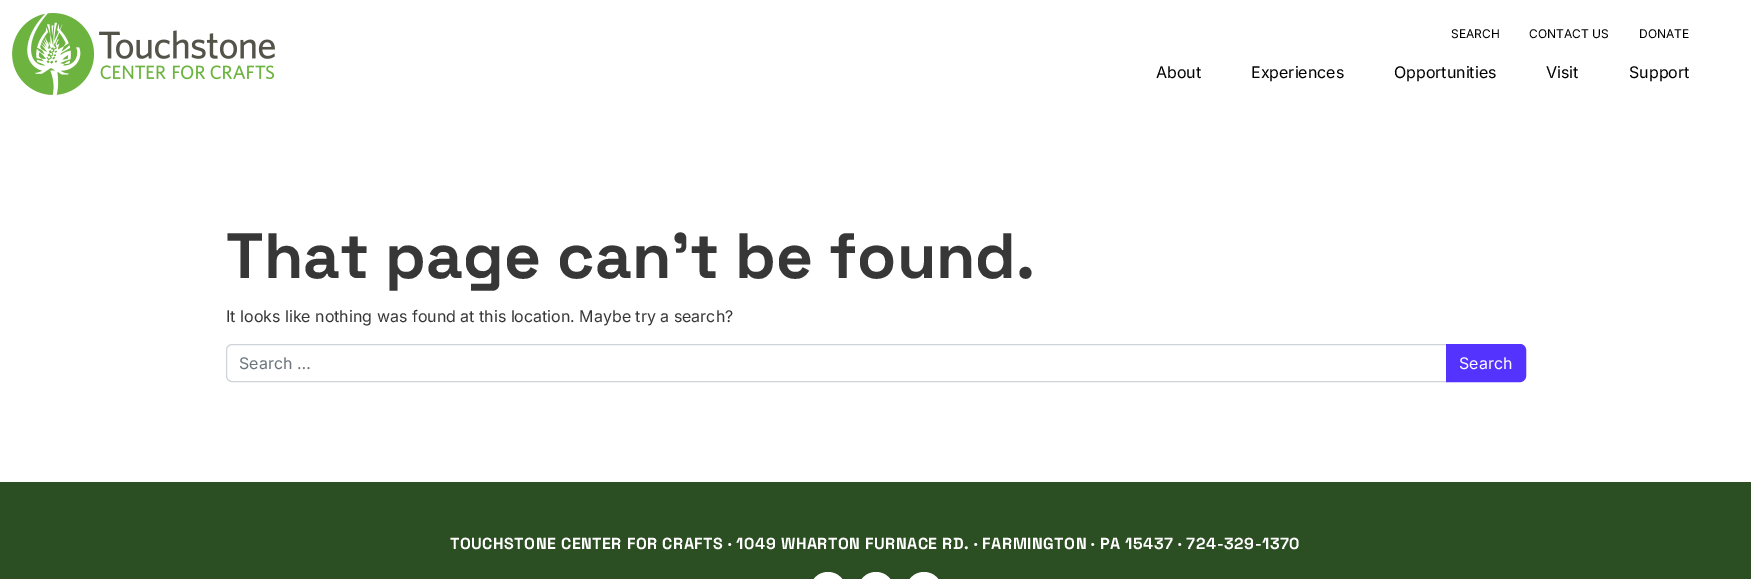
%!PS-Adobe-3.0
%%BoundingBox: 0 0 1751 579
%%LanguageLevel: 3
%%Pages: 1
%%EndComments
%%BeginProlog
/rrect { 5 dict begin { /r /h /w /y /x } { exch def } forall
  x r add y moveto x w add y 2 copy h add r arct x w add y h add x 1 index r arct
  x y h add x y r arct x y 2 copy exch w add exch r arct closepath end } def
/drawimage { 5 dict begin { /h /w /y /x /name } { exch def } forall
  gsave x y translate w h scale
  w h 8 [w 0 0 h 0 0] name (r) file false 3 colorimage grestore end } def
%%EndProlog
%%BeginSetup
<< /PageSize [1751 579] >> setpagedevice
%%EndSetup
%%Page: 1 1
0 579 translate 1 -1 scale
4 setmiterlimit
1 setgray
0 0 1751 579 rectfill
(images/1.raw) 12 13 263 82 drawimage
0.808 0.831 0.855 setrgbcolor
newpath 232 344.5 moveto 1446.5 344.5 lineto 1446.5 381.5 lineto 232 381.5 lineto 229 381.5 226.5 379 226.5 376 curveto 226.5 350 lineto 226.5 347 229 344.5 232 344.5 curveto closepath stroke
0.333 0.2 1 setrgbcolor
newpath 1446.5 344.5 moveto 1520 344.5 lineto 1523 344.5 1525.5 347 1525.5 350 curveto 1525.5 376 lineto 1525.5 379 1523 381.5 1520 381.5 curveto 1446.5 381.5 lineto closepath gsave fill grestore
stroke
0.173 0.306 0.137 setrgbcolor
0 482 1751 97 rectfill
1 setgray
810 572 36 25 18 rrect fill
858 572 36 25 18 rrect fill
906 572 36 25 18 rrect fill
/Inter-Regular [12 0 0 -12 0 0] selectfont
0 setgray
1451 38 moveto (SEARCH) show
1529 38 moveto (CONTACT US) show
1639 38 moveto (DONATE) show
/Inter-Regular [16 0 0 -16 0 0] selectfont
1156 78 moveto (About) show
1251 78 moveto (Experiences) show
1394 78 moveto (Opportunities) show
1546 78 moveto (Visit) show
1629 78 moveto (Support) show
/SpaceGrotesk-Bold [64 0 0 -64 0 0] selectfont
0.216 setgray
226 278 moveto (That page can’t be found.) show
/Inter-Regular [16 0 0 -16 0 0] selectfont
226 322 moveto (It looks like nothing was found at this location. Maybe try a search?) show
0.424 0.459 0.49 setrgbcolor
239 369 moveto (Search …) show
1 setgray
1459 369 moveto (Search) show
/SpaceGrotesk-Bold [16 0 0 -16 0 0] selectfont
450 549 moveto 0.5 0 (TOUCHSTONE CENTER FOR CRAFTS · 1049 WHARTON FURNACE RD. · FARMINGTON · PA 15437 · 724-329-1370) ashow
showpage
%%EOF
